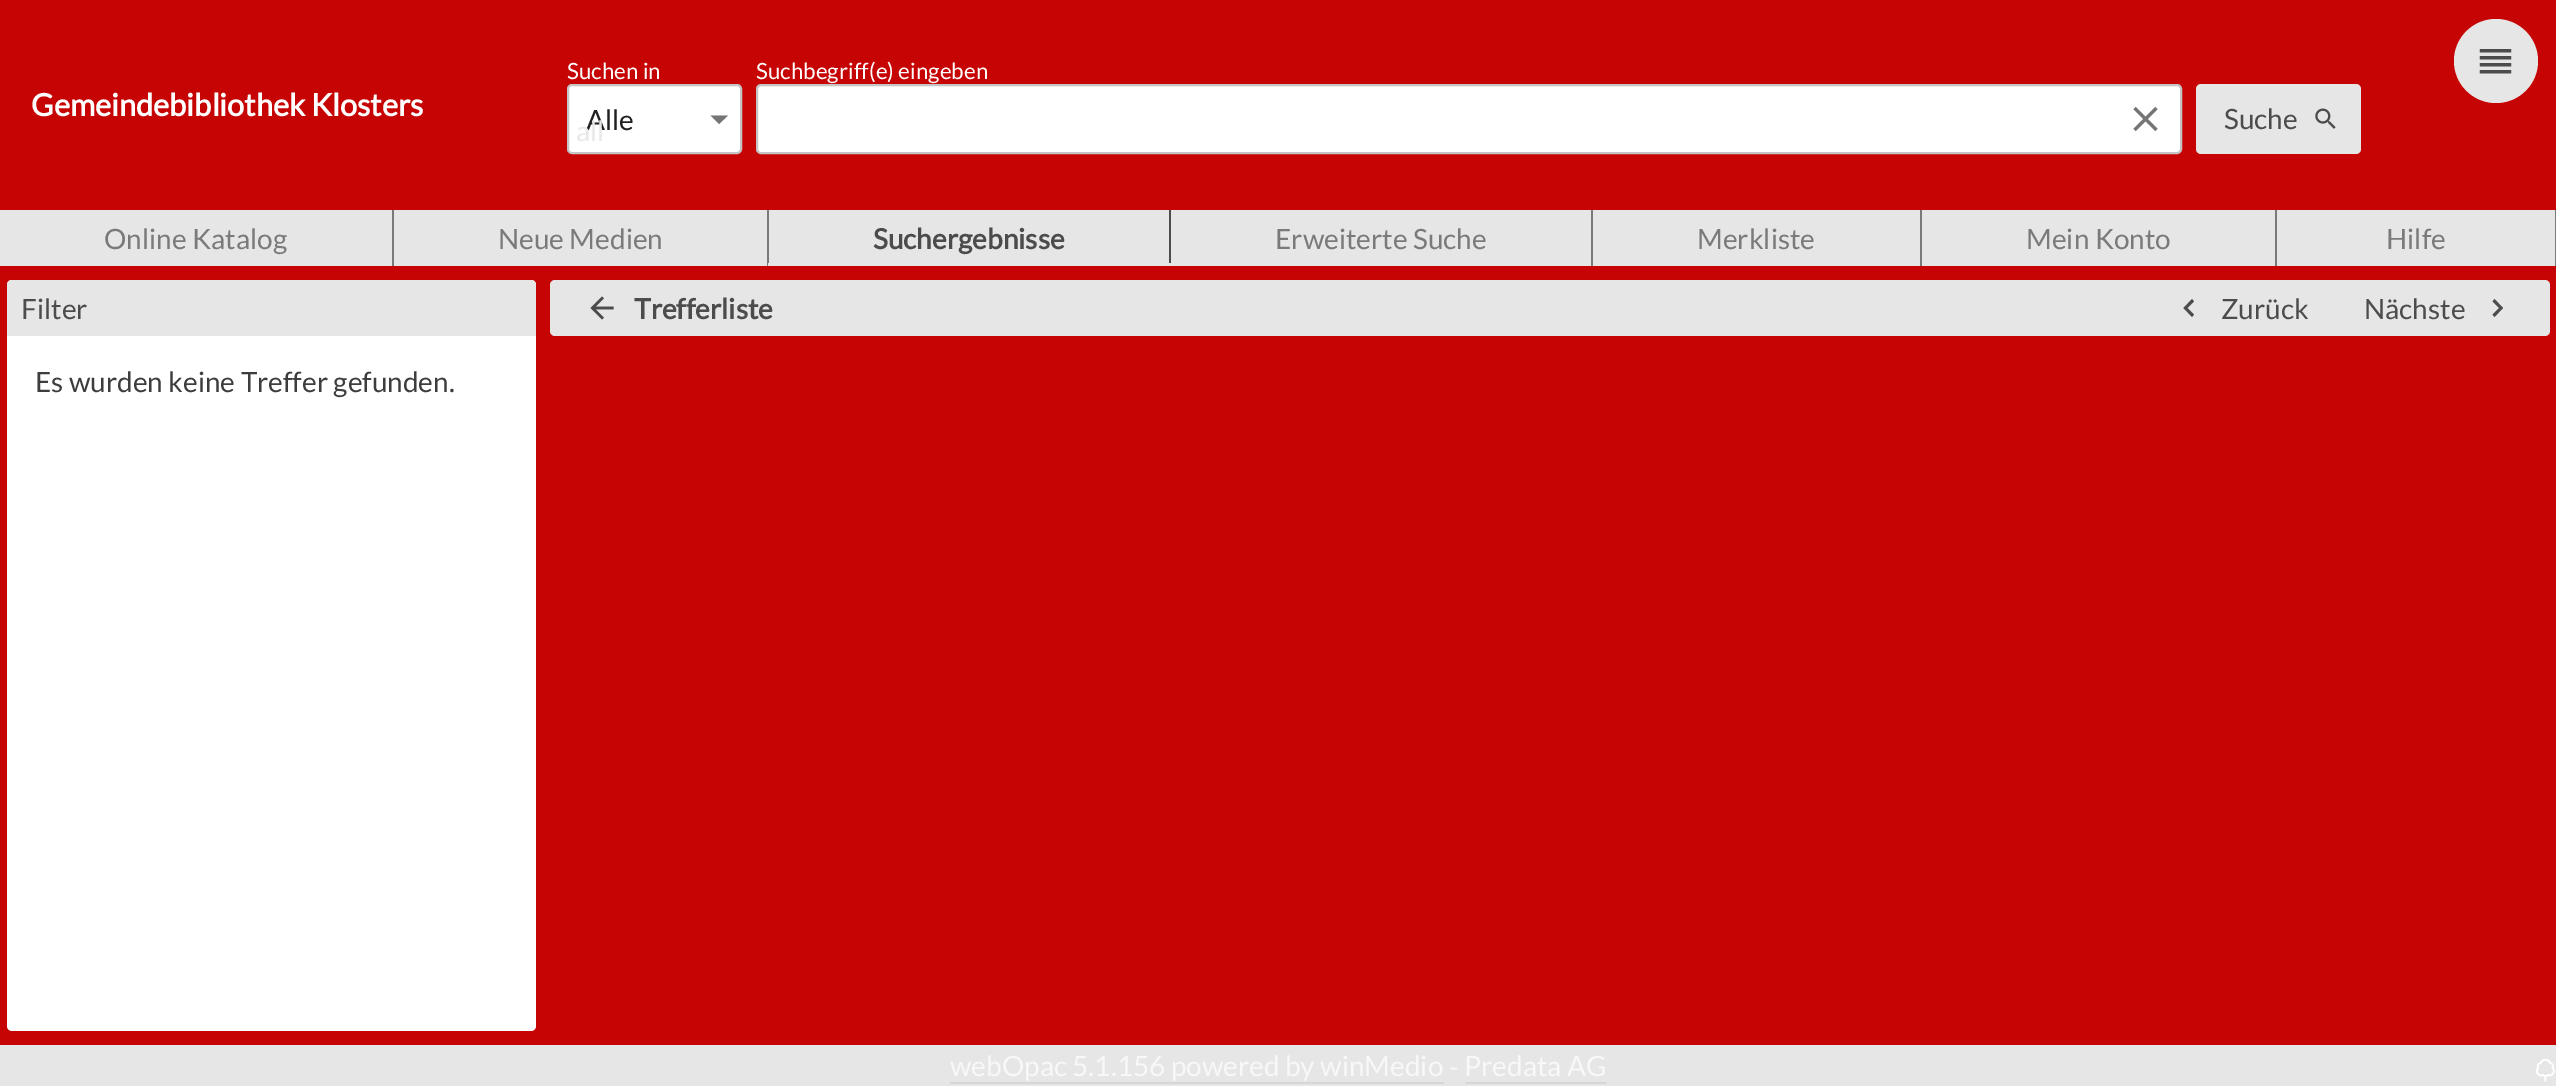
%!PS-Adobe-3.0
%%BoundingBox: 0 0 2556 1086
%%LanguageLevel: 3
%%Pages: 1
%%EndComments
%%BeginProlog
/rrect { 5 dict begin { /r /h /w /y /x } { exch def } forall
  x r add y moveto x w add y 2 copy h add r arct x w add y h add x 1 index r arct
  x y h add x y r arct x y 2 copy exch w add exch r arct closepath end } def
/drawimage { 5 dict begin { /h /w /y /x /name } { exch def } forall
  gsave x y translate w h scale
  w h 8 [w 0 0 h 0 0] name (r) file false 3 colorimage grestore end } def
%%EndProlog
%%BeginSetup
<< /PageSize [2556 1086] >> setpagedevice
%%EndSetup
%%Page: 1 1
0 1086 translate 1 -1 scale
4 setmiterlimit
0.78 0.016 0.016 setrgbcolor
0 0 2556 1086 rectfill
1 setgray
568 85 173 68 4 rrect gsave fill grestore
0.773 setgray
2 setlinewidth
stroke
0.459 setgray
newpath 710.5 115.5 moveto 719 124 lineto 728 115.5 lineto closepath fill
1 setgray
757 85 1424 68 4 rrect gsave fill grestore
0.773 setgray
stroke
(images/1.raw) 2133 106 25 26 drawimage
0.902 setgray
2196 84 165 70 5 rrect fill
(images/2.raw) 2315 108 21 21 drawimage
newpath 2496 61 42 0 360 arc closepath fill
(images/3.raw) 2479 49 33 25 drawimage
0 210 2555 56 rectfill
0.478 setgray
392 210 2 56 rectfill
767 210 2 56 rectfill
0.298 setgray
1169 210 2 56 rectfill
0.478 setgray
1591 210 2 56 rectfill
1920 210 2 56 rectfill
2275 210 2 56 rectfill
2555 210 1 56 rectfill
0.902 setgray
768 263 403 3 rectfill
1 setgray
7 280 529 751 5 rrect fill
0.902 setgray
newpath 12 280 moveto 531 280 lineto 534 280 536 282 536 285 curveto 536 336 lineto 7 336 lineto 7 285 lineto 7 282 9 280 12 280 curveto closepath fill
550 280 2000 56 5 rrect fill
(images/4.raw) 590 296 24 24 drawimage
0.298 setgray
newpath 2194 301.5 moveto 2192 299 lineto 2183.5 308 lineto 2192 317 lineto 2194 314.5 lineto 2187.5 308 lineto closepath fill
newpath 2494.5 299 moveto 2492.5 301.5 lineto 2499 308 lineto 2492.5 314.5 lineto 2494.5 317 lineto 2503 308 lineto closepath fill
0.902 setgray
0 1045 2556 41 rectfill
0.839 setgray
950 1082 494 2 rectfill
1465 1082 142 2 rectfill
(images/5.raw) 2536 1059 19 23 drawimage
/Lato-Bold [30.75 0 0 -30.75 0 0] selectfont
1 setgray
31 116 moveto (Gemeindebibliothek Klosters) show
/Lato-Regular [22.4 0 0 -22.4 0 0] selectfont
567 79 moveto (Suchen in) show
/Lato-Regular [28 0 0 -28 0 0] selectfont
0.129 setgray
586 130 moveto (Alle) show
0.91 setgray
576 141 moveto (all) show
/Lato-Regular [22.4 0 0 -22.4 0 0] selectfont
1 setgray
756 79 moveto (Suchbegriff\(e\) eingeben) show
/Lato-Regular [28 0 0 -28 0 0] selectfont
0.298 setgray
2224 129 moveto (Suche) show
0.478 setgray
104 249 moveto (Online Katalog) show
498 249 moveto (Neue Medien) show
/Lato-Bold [28 0 0 -28 0 0] selectfont
0.298 setgray
873 249 moveto (Suchergebnisse) show
/Lato-Regular [28 0 0 -28 0 0] selectfont
0.478 setgray
1275 249 moveto (Erweiterte Suche) show
1697 249 moveto (Merkliste) show
2026 249 moveto (Mein Konto) show
2386 249 moveto (Hilfe) show
0.298 setgray
21 319 moveto (Filter) show
0.239 setgray
35 392 moveto (Es wurden keine Treffer gefunden.) show
/Lato-Bold [28 0 0 -28 0 0] selectfont
0.298 setgray
634 319 moveto (Trefferliste) show
/Lato-Regular [28 0 0 -28 0 0] selectfont
2221 319 moveto (Zurück) show
2364 319 moveto (Nächste) show
0.973 setgray
950 1076 moveto (webOpac 5.1.156 powered by winMedio) show
1449 1077 moveto (-) show
1464 1076 moveto (Predata AG) show
showpage
%%EOF
